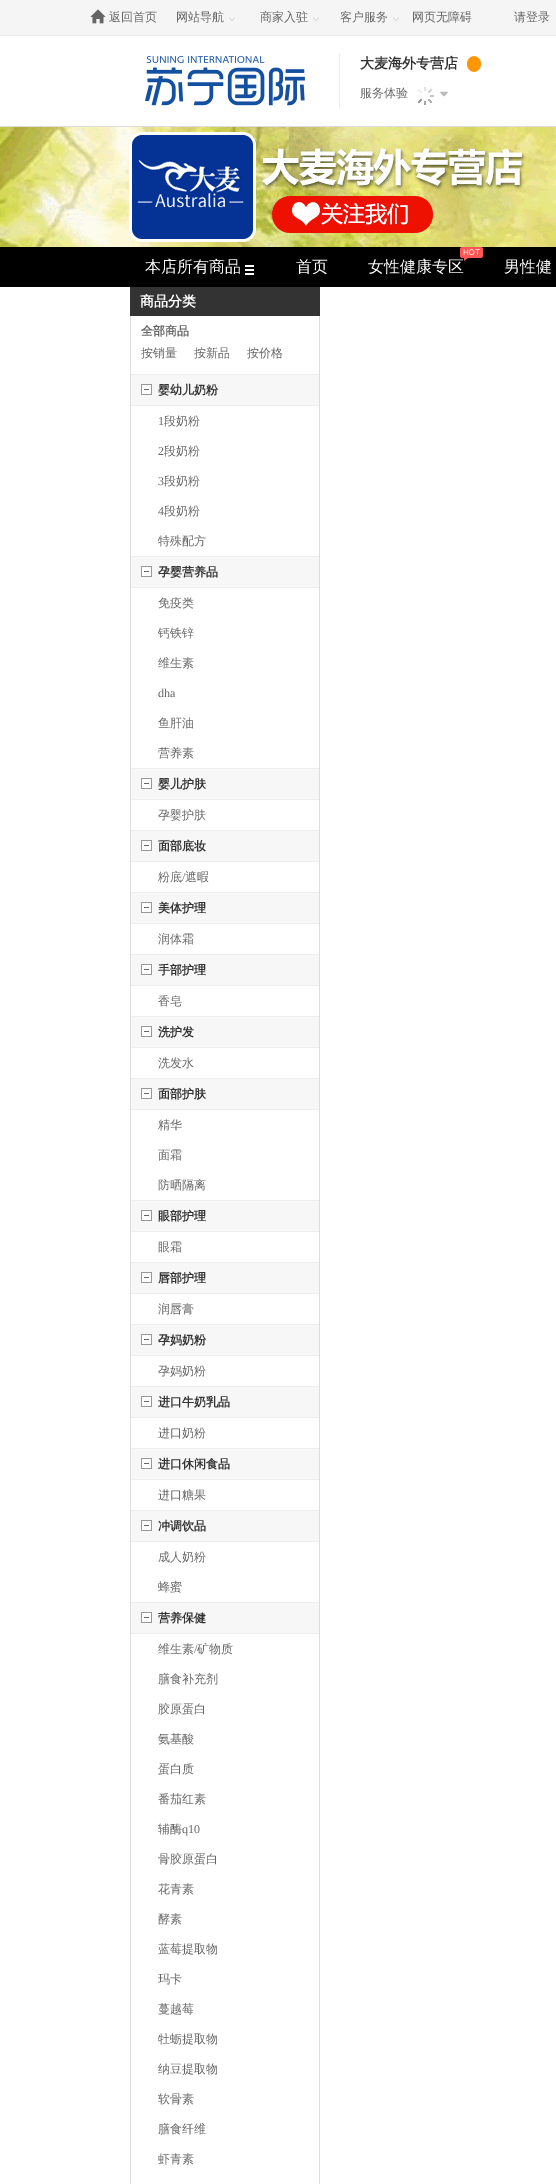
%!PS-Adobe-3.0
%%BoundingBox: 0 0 556 2184
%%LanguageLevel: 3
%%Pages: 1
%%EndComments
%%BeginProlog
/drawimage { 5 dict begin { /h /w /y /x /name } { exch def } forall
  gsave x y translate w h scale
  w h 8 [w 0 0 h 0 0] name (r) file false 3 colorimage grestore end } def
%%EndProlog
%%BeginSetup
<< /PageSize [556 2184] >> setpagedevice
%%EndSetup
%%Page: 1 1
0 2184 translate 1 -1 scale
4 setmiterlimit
1 setgray
0 0 556 2184 rectfill
0.961 setgray
0 0 556 35 rectfill
0.933 setgray
0 35 556 1 rectfill
(images/1.raw) 90 9 16 15 drawimage
(images/2.raw) 229 17 6 4 drawimage
(images/2.raw) 313 17 6 4 drawimage
(images/2.raw) 393 17 6 4 drawimage
0.867 setgray
0 126 556 1 rectfill
(images/3.raw) 145 56 160 50 drawimage
0.933 setgray
339 53 1 55 rectfill
(images/4.raw) 467 56 7 16 drawimage
(images/5.raw) 474 56 7 16 drawimage
(images/6.raw) 416 87 18 18 drawimage
(images/7.raw) 440 91 8 6 drawimage
(images/8.raw) 0 127 556 120 drawimage
0 setgray
0 247 556 40 rectfill
(images/9.raw) 245 265 9 10 drawimage
0.2 setgray
130 287 190 29 rectfill
0.867 setgray
319 316 1 1868 rectfill
130 316 1 1868 rectfill
0.969 setgray
131 375 188 30 rectfill
0.933 setgray
131 374 188 1 rectfill
(images/11.raw) 141 384 11 11 drawimage
131 405 188 1 rectfill
0.969 setgray
131 557 188 30 rectfill
0.933 setgray
131 556 188 1 rectfill
(images/11.raw) 141 566 11 11 drawimage
131 587 188 1 rectfill
0.969 setgray
131 769 188 30 rectfill
0.933 setgray
131 768 188 1 rectfill
(images/11.raw) 141 778 11 11 drawimage
131 799 188 1 rectfill
0.969 setgray
131 831 188 30 rectfill
0.933 setgray
131 830 188 1 rectfill
(images/11.raw) 141 840 11 11 drawimage
131 861 188 1 rectfill
0.969 setgray
131 893 188 30 rectfill
0.933 setgray
131 892 188 1 rectfill
(images/11.raw) 141 902 11 11 drawimage
131 923 188 1 rectfill
0.969 setgray
131 955 188 30 rectfill
0.933 setgray
131 954 188 1 rectfill
(images/11.raw) 141 964 11 11 drawimage
131 985 188 1 rectfill
0.969 setgray
131 1017 188 30 rectfill
0.933 setgray
131 1016 188 1 rectfill
(images/11.raw) 141 1026 11 11 drawimage
131 1047 188 1 rectfill
0.969 setgray
131 1079 188 30 rectfill
0.933 setgray
131 1078 188 1 rectfill
(images/11.raw) 141 1088 11 11 drawimage
131 1109 188 1 rectfill
0.969 setgray
131 1201 188 30 rectfill
0.933 setgray
131 1200 188 1 rectfill
(images/11.raw) 141 1210 11 11 drawimage
131 1231 188 1 rectfill
0.969 setgray
131 1263 188 30 rectfill
0.933 setgray
131 1262 188 1 rectfill
(images/11.raw) 141 1272 11 11 drawimage
131 1293 188 1 rectfill
0.969 setgray
131 1325 188 30 rectfill
0.933 setgray
131 1324 188 1 rectfill
(images/11.raw) 141 1334 11 11 drawimage
131 1355 188 1 rectfill
0.969 setgray
131 1387 188 30 rectfill
0.933 setgray
131 1386 188 1 rectfill
(images/11.raw) 141 1396 11 11 drawimage
131 1417 188 1 rectfill
0.969 setgray
131 1449 188 30 rectfill
0.933 setgray
131 1448 188 1 rectfill
(images/11.raw) 141 1458 11 11 drawimage
131 1479 188 1 rectfill
0.969 setgray
131 1511 188 30 rectfill
0.933 setgray
131 1510 188 1 rectfill
(images/11.raw) 141 1520 11 11 drawimage
131 1541 188 1 rectfill
0.969 setgray
131 1603 188 30 rectfill
0.933 setgray
131 1602 188 1 rectfill
(images/11.raw) 141 1612 11 11 drawimage
131 1633 188 1 rectfill
/WenQuanYiZenHei-Medium [12 0 0 -12 0 0] selectfont
0.4 setgray
109 21 moveto (返回首页) show
176 21 moveto (网站导航) show
260 21 moveto (商家入驻) show
340 21 moveto (客户服务) show
412 21 moveto (网页无障碍) show
514 21 moveto (请登录) show
/WenQuanYiZenHei-Bold [14 0 0 -14 0 0] selectfont
0.2 setgray
360 68 moveto (大麦海外专营店) show
/WenQuanYiZenHei-Medium [12 0 0 -12 0 0] selectfont
0.4 setgray
360 97 moveto (服务体验) show
/WenQuanYiZenHei-Medium [16 0 0 -16 0 0] selectfont
1 setgray
145 272 moveto (本店所有商品) show
296 272 moveto (首页) show
368 272 moveto (女性健康专区) show
(images/10.raw) 460 247 23 14 drawimage
504 272 moveto (男性健) show
/WenQuanYiZenHei-Bold [14 0 0 -14 0 0] selectfont
140 306 moveto (商品分类) show
/WenQuanYiZenHei-Bold [12 0 0 -12 0 0] selectfont
0.4 setgray
141 335 moveto (全部商品) show
/WenQuanYiZenHei-Medium [12 0 0 -12 0 0] selectfont
141 357 moveto (按销量) show
194 357 moveto (按新品) show
247 357 moveto (按价格) show
/WenQuanYiZenHei-Bold [12 0 0 -12 0 0] selectfont
0.2 setgray
158 394 moveto (婴幼儿奶粉) show
/LiberationSerif-Regular [12 0 0 -12 0 0] selectfont
0.4 setgray
158 425 moveto (1) show
/WenQuanYiZenHei-Medium [12 0 0 -12 0 0] selectfont
164 425 moveto (段奶粉) show
/LiberationSerif-Regular [12 0 0 -12 0 0] selectfont
158 455 moveto (2) show
/WenQuanYiZenHei-Medium [12 0 0 -12 0 0] selectfont
164 455 moveto (段奶粉) show
/LiberationSerif-Regular [12 0 0 -12 0 0] selectfont
158 485 moveto (3) show
/WenQuanYiZenHei-Medium [12 0 0 -12 0 0] selectfont
164 485 moveto (段奶粉) show
/LiberationSerif-Regular [12 0 0 -12 0 0] selectfont
158 515 moveto (4) show
/WenQuanYiZenHei-Medium [12 0 0 -12 0 0] selectfont
164 515 moveto (段奶粉) show
158 545 moveto (特殊配方) show
/WenQuanYiZenHei-Bold [12 0 0 -12 0 0] selectfont
0.2 setgray
158 576 moveto (孕婴营养品) show
/WenQuanYiZenHei-Medium [12 0 0 -12 0 0] selectfont
0.4 setgray
158 607 moveto (免疫类) show
158 637 moveto (钙铁锌) show
158 667 moveto (维生素) show
/LiberationSerif-Regular [12 0 0 -12 0 0] selectfont
158 697 moveto (dha) show
/WenQuanYiZenHei-Medium [12 0 0 -12 0 0] selectfont
158 727 moveto (鱼肝油) show
158 757 moveto (营养素) show
/WenQuanYiZenHei-Bold [12 0 0 -12 0 0] selectfont
0.2 setgray
158 788 moveto (婴儿护肤) show
/WenQuanYiZenHei-Medium [12 0 0 -12 0 0] selectfont
0.4 setgray
158 819 moveto (孕婴护肤) show
/WenQuanYiZenHei-Bold [12 0 0 -12 0 0] selectfont
0.2 setgray
158 850 moveto (面部底妆) show
/WenQuanYiZenHei-Medium [12 0 0 -12 0 0] selectfont
0.4 setgray
158 881 moveto (粉底) show
/LiberationSerif-Regular [12 0 0 -12 0 0] selectfont
182 881 moveto (/) show
/WenQuanYiZenHei-Medium [12 0 0 -12 0 0] selectfont
185 881 moveto (遮暇) show
/WenQuanYiZenHei-Bold [12 0 0 -12 0 0] selectfont
0.2 setgray
158 912 moveto (美体护理) show
/WenQuanYiZenHei-Medium [12 0 0 -12 0 0] selectfont
0.4 setgray
158 943 moveto (润体霜) show
/WenQuanYiZenHei-Bold [12 0 0 -12 0 0] selectfont
0.2 setgray
158 974 moveto (手部护理) show
/WenQuanYiZenHei-Medium [12 0 0 -12 0 0] selectfont
0.4 setgray
158 1005 moveto (香皂) show
/WenQuanYiZenHei-Bold [12 0 0 -12 0 0] selectfont
0.2 setgray
158 1036 moveto (洗护发) show
/WenQuanYiZenHei-Medium [12 0 0 -12 0 0] selectfont
0.4 setgray
158 1067 moveto (洗发水) show
/WenQuanYiZenHei-Bold [12 0 0 -12 0 0] selectfont
0.2 setgray
158 1098 moveto (面部护肤) show
/WenQuanYiZenHei-Medium [12 0 0 -12 0 0] selectfont
0.4 setgray
158 1129 moveto (精华) show
158 1159 moveto (面霜) show
158 1189 moveto (防晒隔离) show
/WenQuanYiZenHei-Bold [12 0 0 -12 0 0] selectfont
0.2 setgray
158 1220 moveto (眼部护理) show
/WenQuanYiZenHei-Medium [12 0 0 -12 0 0] selectfont
0.4 setgray
158 1251 moveto (眼霜) show
/WenQuanYiZenHei-Bold [12 0 0 -12 0 0] selectfont
0.2 setgray
158 1282 moveto (唇部护理) show
/WenQuanYiZenHei-Medium [12 0 0 -12 0 0] selectfont
0.4 setgray
158 1313 moveto (润唇膏) show
/WenQuanYiZenHei-Bold [12 0 0 -12 0 0] selectfont
0.2 setgray
158 1344 moveto (孕妈奶粉) show
/WenQuanYiZenHei-Medium [12 0 0 -12 0 0] selectfont
0.4 setgray
158 1375 moveto (孕妈奶粉) show
/WenQuanYiZenHei-Bold [12 0 0 -12 0 0] selectfont
0.2 setgray
158 1406 moveto (进口牛奶乳品) show
/WenQuanYiZenHei-Medium [12 0 0 -12 0 0] selectfont
0.4 setgray
158 1437 moveto (进口奶粉) show
/WenQuanYiZenHei-Bold [12 0 0 -12 0 0] selectfont
0.2 setgray
158 1468 moveto (进口休闲食品) show
/WenQuanYiZenHei-Medium [12 0 0 -12 0 0] selectfont
0.4 setgray
158 1499 moveto (进口糖果) show
/WenQuanYiZenHei-Bold [12 0 0 -12 0 0] selectfont
0.2 setgray
158 1530 moveto (冲调饮品) show
/WenQuanYiZenHei-Medium [12 0 0 -12 0 0] selectfont
0.4 setgray
158 1561 moveto (成人奶粉) show
158 1591 moveto (蜂蜜) show
/WenQuanYiZenHei-Bold [12 0 0 -12 0 0] selectfont
0.2 setgray
158 1622 moveto (营养保健) show
/WenQuanYiZenHei-Medium [12 0 0 -12 0 0] selectfont
0.4 setgray
158 1653 moveto (维生素) show
/LiberationSerif-Regular [12 0 0 -12 0 0] selectfont
194 1653 moveto (/) show
/WenQuanYiZenHei-Medium [12 0 0 -12 0 0] selectfont
197 1653 moveto (矿物质) show
158 1683 moveto (膳食补充剂) show
158 1713 moveto (胶原蛋白) show
158 1743 moveto (氨基酸) show
158 1773 moveto (蛋白质) show
158 1803 moveto (番茄红素) show
158 1833 moveto (辅酶) show
/LiberationSerif-Regular [12 0 0 -12 0 0] selectfont
182 1833 moveto (q10) show
/WenQuanYiZenHei-Medium [12 0 0 -12 0 0] selectfont
158 1863 moveto (骨胶原蛋白) show
158 1893 moveto (花青素) show
158 1923 moveto (酵素) show
158 1953 moveto (蓝莓提取物) show
158 1983 moveto (玛卡) show
158 2013 moveto (蔓越莓) show
158 2043 moveto (牡蛎提取物) show
158 2073 moveto (纳豆提取物) show
158 2103 moveto (软骨素) show
158 2133 moveto (膳食纤维) show
158 2163 moveto (虾青素) show
showpage
%%EOF
